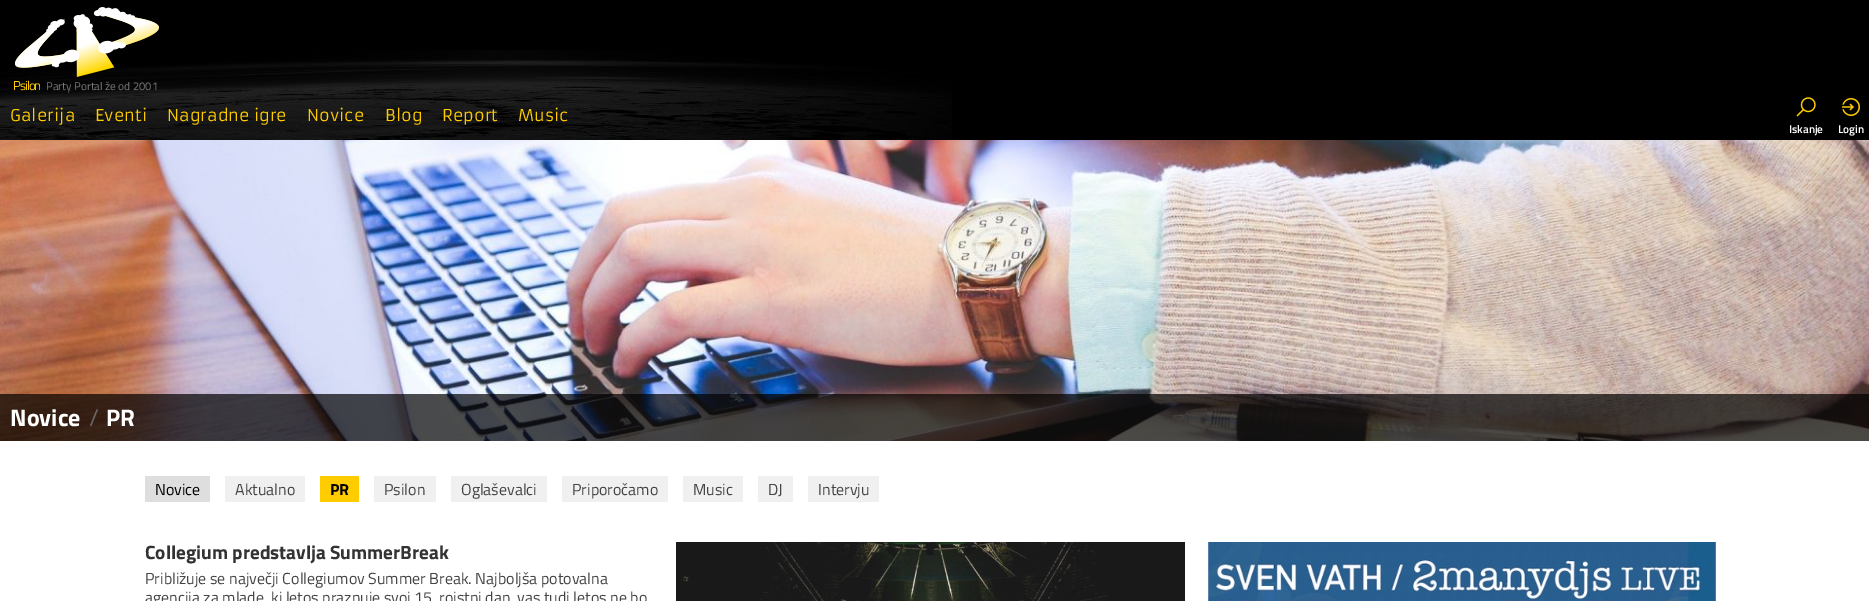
%!PS-Adobe-3.0
%%BoundingBox: 0 0 1869 601
%%LanguageLevel: 3
%%Pages: 1
%%EndComments
%%BeginProlog
/setalpha { dup .setfillconstantalpha .setstrokeconstantalpha } def
/drawimage { 5 dict begin { /h /w /y /x /name } { exch def } forall
  gsave x y translate w h scale
  w h 8 [w 0 0 h 0 0] name (r) file false 3 colorimage grestore end } def
%%EndProlog
%%BeginSetup
<< /PageSize [1869 601] /PageUsesTransparency true >> setpagedevice
%%EndSetup
%%Page: 1 1
0 .pushpdf14devicefilter
0 601 translate 1 -1 scale
4 setmiterlimit
0 setgray
0 0 1869 601 rectfill
(images/1.raw) 0 50 952 90 drawimage
(images/2.raw) 15 7 144 70 drawimage
(images/3.raw) 1796 97 20 20 drawimage
(images/4.raw) 1842 98 18 18 drawimage
1 setgray
0 441 1869 160 rectfill
(images/5.raw) 0 140 1869 301 drawimage
0.7 setalpha
0 setgray
0 394 1869 47 rectfill
1 setalpha
0.871 setgray
145 476 65 26 rectfill
0.941 setgray
225 476 80 26 rectfill
1 0.8 0 setrgbcolor
320 476 39 26 rectfill
0.941 setgray
374 476 62 26 rectfill
451 476 96 26 rectfill
562 476 106 26 rectfill
683 476 60 26 rectfill
758 476 35 26 rectfill
808 476 71 26 rectfill
(images/6.raw) 676 542 509 59 drawimage
(images/7.raw) 1208 542 508 59 drawimage
/TitilliumWeb-Regular [13 0 0 -13 0 0] selectfont
1 0.8 0 setrgbcolor
13 90 moveto -1 0 (Psilon) ashow
/TitilliumWeb-Regular [11.25 0 0 -11.25 0 0] selectfont
0.471 setgray
46 90 moveto (Party Portal že od 2001) show
/Armata-Regular [16 0 0 -16 0 0] selectfont
1 0.8 0 setrgbcolor
10 121 moveto (Galerija) show
95 121 moveto (Eventi) show
167 121 moveto (Nagradne igre) show
307 121 moveto (Novice) show
385 121 moveto (Blog) show
442 121 moveto (Report) show
518 121 moveto (Music) show
/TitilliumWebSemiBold-SemiBold [11.25 0 0 -11.25 0 0] selectfont
1 setgray
1789 133 moveto (Iskanje) show
1838 133 moveto (Login) show
/TitilliumWeb-Bold [24 0 0 -24 0 0] selectfont
10 426 moveto (Novice) show
/TitilliumWeb-Regular [24 0 0 -24 0 0] selectfont
0.4 setgray
89 426 moveto (/) show
/TitilliumWeb-Bold [24 0 0 -24 0 0] selectfont
1 setgray
106 426 moveto (PR) show
/TitilliumWeb-Regular [16 0 0 -16 0 0] selectfont
0 setgray
155 495 moveto (Novice) show
0.271 setgray
235 495 moveto (Aktualno) show
/TitilliumWeb-Bold [16 0 0 -16 0 0] selectfont
0 setgray
330 495 moveto (PR) show
/TitilliumWeb-Regular [16 0 0 -16 0 0] selectfont
0.271 setgray
384 495 moveto (Psilon) show
461 495 moveto (Oglaševalci) show
572 495 moveto (Priporočamo) show
693 495 moveto (Music) show
768 495 moveto (DJ) show
818 495 moveto (Intervju) show
/TitilliumWeb-Bold [19.25 0 0 -19.25 0 0] selectfont
0.2 setgray
145 559 moveto (Collegium predstavlja SummerBreak) show
/TitilliumWeb-Regular [16 0 0 -16 0 0] selectfont
0.271 setgray
145 584 moveto (Približuje se največji Collegiumov Summer Break. Najboljša potovalna) show
145 603 moveto (agencija za mlade, ki letos praznuje svoj 15. rojstni dan) show
517 603 moveto (vas tudi letos ne bo) show
.poppdf14devicefilter showpage
%%EOF
